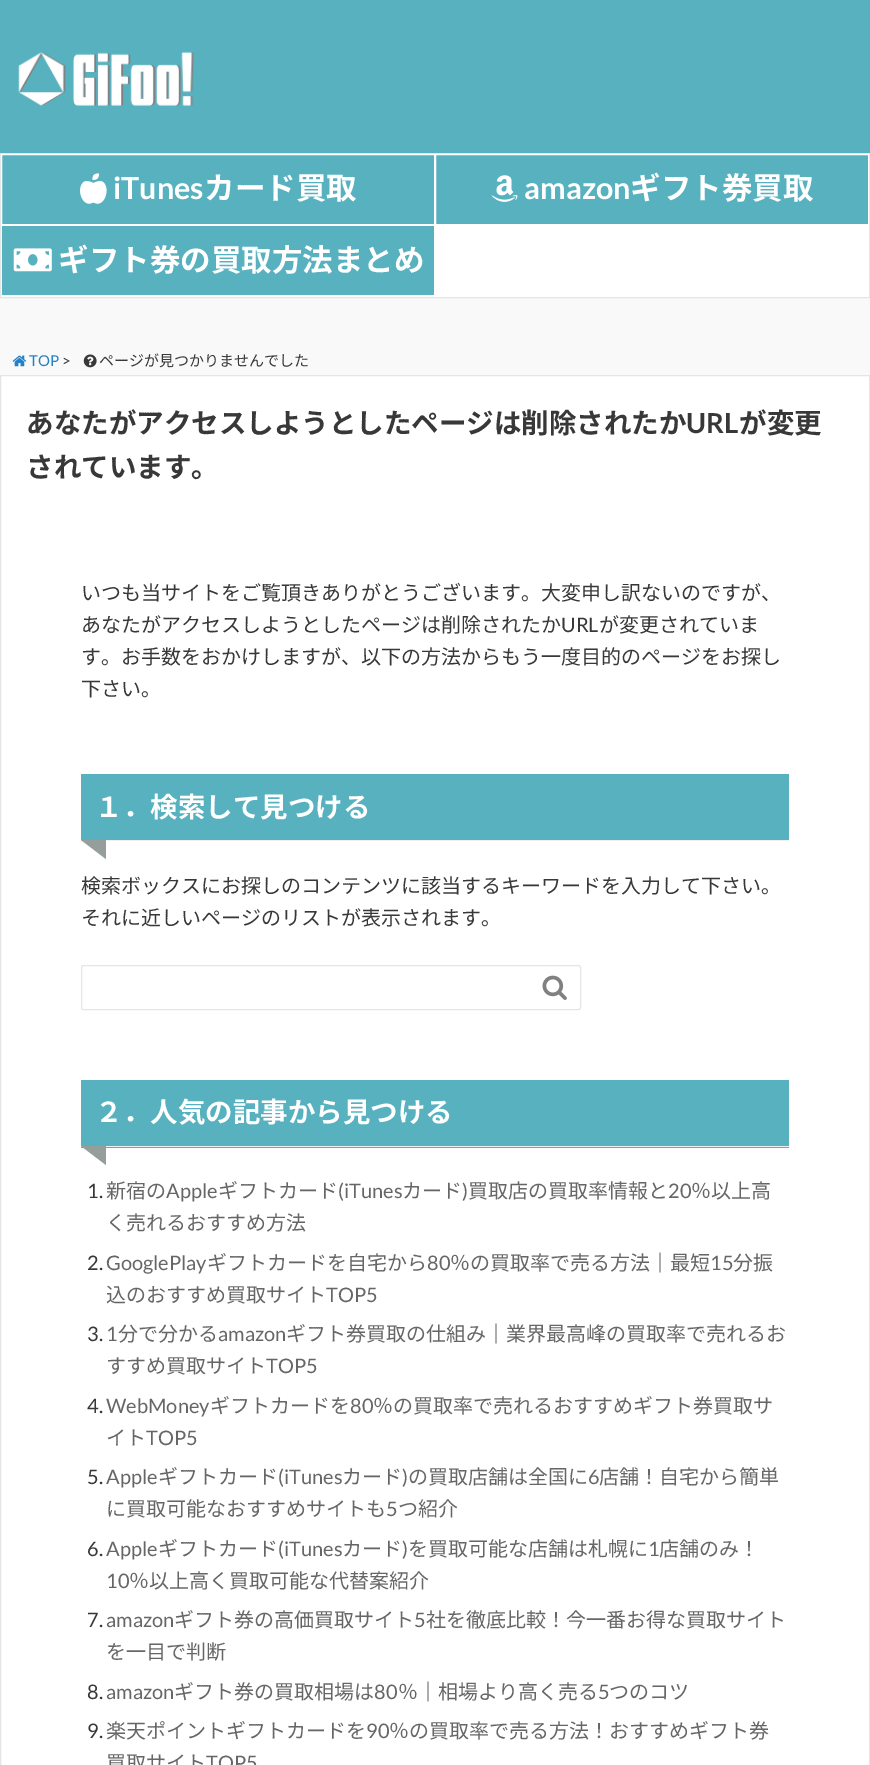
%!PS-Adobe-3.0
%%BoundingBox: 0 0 870 1765
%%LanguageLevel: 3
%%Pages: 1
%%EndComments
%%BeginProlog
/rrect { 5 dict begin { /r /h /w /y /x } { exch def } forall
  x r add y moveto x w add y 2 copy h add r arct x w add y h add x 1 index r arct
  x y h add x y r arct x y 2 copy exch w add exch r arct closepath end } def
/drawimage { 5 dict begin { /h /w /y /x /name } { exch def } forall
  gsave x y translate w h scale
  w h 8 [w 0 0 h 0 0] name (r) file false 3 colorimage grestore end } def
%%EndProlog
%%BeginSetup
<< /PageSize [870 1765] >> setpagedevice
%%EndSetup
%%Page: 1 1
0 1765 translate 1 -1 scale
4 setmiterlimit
0.976 setgray
0 0 870 1765 rectfill
0.341 0.694 0.749 setrgbcolor
0 0 870 153 rectfill
(images/1.raw) 18 51 176 55 drawimage
1 setgray
1 225 868 72 rectfill
0.898 setgray
0.5 153.5 869 144 rectstroke
0.341 0.694 0.749 setrgbcolor
newpath 1.5 154.5 moveto 434.5 154.5 lineto 434.5 224.5 lineto 1.5 224.5 lineto closepath gsave fill grestore
1 setgray
stroke
(images/2.raw) 80 173 27 31 drawimage
0.341 0.694 0.749 setrgbcolor
newpath 435.5 154.5 moveto 868.5 154.5 lineto 868.5 224.5 lineto 435.5 224.5 lineto closepath gsave fill grestore
1 setgray
stroke
(images/3.raw) 491 175 27 27 drawimage
0.341 0.694 0.749 setrgbcolor
2 226 432 69 rectfill
(images/4.raw) 13 248 39 24 drawimage
(images/5.raw) 12 355 15 12 drawimage
(images/6.raw) 83 354 14 14 drawimage
1 setgray
newpath 0.5 375.5 moveto 869.5 375.5 lineto 869.5 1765.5 lineto 0.5 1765.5 lineto closepath gsave fill grestore
0.898 setgray
stroke
0.341 0.694 0.749 setrgbcolor
81 774 708 66 rectfill
0.937 setgray
81 840 708 1 rectfill
0.584 0.62 0.608 setrgbcolor
newpath 106 840 moveto 106 859 lineto 81 840 lineto closepath fill
0.898 setgray
81.5 965.5 499 44 2 rrect stroke
(images/7.raw) 542 975 25 25 drawimage
0.341 0.694 0.749 setrgbcolor
81 1080 708 68 rectfill
0.937 setgray
81 1146 708 1 rectfill
0.584 0.62 0.608 setrgbcolor
newpath 106 1146 moveto 106 1165 lineto 81 1146 lineto closepath fill
/Lato-Bold [30.5 0 0 -30.5 0 0] selectfont
1 setgray
113 199 moveto (iTunes) show
/NotoSansJP-Bold [30.5 0 0 -30.5 0 0] selectfont
204 199 moveto (カード買取) show
/Lato-Bold [30.5 0 0 -30.5 0 0] selectfont
524 199 moveto (amazon) show
/NotoSansJP-Bold [30.5 0 0 -30.5 0 0] selectfont
630 199 moveto (ギフト券買取) show
58 271 moveto (ギフト券の買取方法まとめ) show
/Lato-Regular [15 0 0 -15 0 0] selectfont
0.145 0.506 0.769 setrgbcolor
29 366 moveto (TOP) show
0.22 setgray
62 366 moveto (>) show
/NotoSansJP-Regular [15 0 0 -15 0 0] selectfont
99 366 moveto (ページが見つかりませんでした) show
/NotoSansJP-Bold [27.5 0 0 -27.5 0 0] selectfont
26 433 moveto (あなたがアクセスしようとしたページは削除されたか) show
/Lato-Bold [27.5 0 0 -27.5 0 0] selectfont
686 433 moveto (URL) show
/NotoSansJP-Bold [27.5 0 0 -27.5 0 0] selectfont
739 433 moveto (が変更) show
26 477 moveto (されています。) show
/NotoSansJP-Regular [20 0 0 -20 0 0] selectfont
81 600 moveto (いつも当サイトをご覧頂きありがとうございます。大変申し訳ないのですが、) show
81 632 moveto (あなたがアクセスしようとしたページは削除されたか) show
/Lato-Regular [20 0 0 -20 0 0] selectfont
561 632 moveto (URL) show
/NotoSansJP-Regular [20 0 0 -20 0 0] selectfont
599 632 moveto (が変更されていま) show
81 664 moveto (す。お手数をおかけしますが、以下の方法からもう一度目的のページをお探し) show
81 696 moveto (下さい。) show
/NotoSansJP-Bold [27.5 0 0 -27.5 0 0] selectfont
1 setgray
95 817 moveto (１．検索して見つける) show
/NotoSansJP-Regular [20 0 0 -20 0 0] selectfont
0.22 setgray
81 893 moveto (検索ボックスにお探しのコンテンツに該当するキーワードを入力して下さい。) show
81 925 moveto (それに近しいページのリストが表示されます。) show
/NotoSansJP-Bold [27.5 0 0 -27.5 0 0] selectfont
1 setgray
95 1122 moveto (２．人気の記事から見つける) show
/Lato-Regular [20 0 0 -20 0 0] selectfont
0.22 setgray
87 1198 moveto (1.) show
/NotoSansJP-Regular [20 0 0 -20 0 0] selectfont
0.4 setgray
106 1198 moveto (新宿の) show
/Lato-Regular [20 0 0 -20 0 0] selectfont
166 1198 moveto (Apple) show
/NotoSansJP-Regular [20 0 0 -20 0 0] selectfont
218 1198 moveto (ギフトカード) show
/Lato-Regular [20 0 0 -20 0 0] selectfont
338 1198 moveto (\(iTunes) show
/NotoSansJP-Regular [20 0 0 -20 0 0] selectfont
402 1198 moveto (カード) show
/Lato-Regular [20 0 0 -20 0 0] selectfont
462 1198 moveto (\)) show
/NotoSansJP-Regular [20 0 0 -20 0 0] selectfont
468 1198 moveto (買取店の買取率情報と) show
/Lato-Regular [20 0 0 -20 0 0] selectfont
668 1198 moveto (20) show
/NotoSansJP-Regular [20 0 0 -20 0 0] selectfont
691 1198 moveto (％以上高) show
106 1230 moveto (く売れるおすすめ方法) show
/Lato-Regular [20 0 0 -20 0 0] selectfont
0.22 setgray
87 1270 moveto (2.) show
0.4 setgray
106 1270 moveto (GooglePlay) show
/NotoSansJP-Regular [20 0 0 -20 0 0] selectfont
207 1270 moveto (ギフトカードを自宅から) show
/Lato-Regular [20 0 0 -20 0 0] selectfont
427 1270 moveto (80) show
/NotoSansJP-Regular [20 0 0 -20 0 0] selectfont
450 1270 moveto (％の買取率で売る方法｜最短) show
/Lato-Regular [20 0 0 -20 0 0] selectfont
710 1270 moveto (15) show
/NotoSansJP-Regular [20 0 0 -20 0 0] selectfont
733 1270 moveto (分振) show
106 1302 moveto (込のおすすめ買取サイト) show
/Lato-Regular [20 0 0 -20 0 0] selectfont
326 1302 moveto (TOP5) show
0.22 setgray
87 1341 moveto (3.) show
0.4 setgray
106 1341 moveto (1) show
/NotoSansJP-Regular [20 0 0 -20 0 0] selectfont
118 1341 moveto (分で分かる) show
/Lato-Regular [20 0 0 -20 0 0] selectfont
218 1341 moveto (amazon) show
/NotoSansJP-Regular [20 0 0 -20 0 0] selectfont
286 1341 moveto (ギフト券買取の仕組み｜業界最高峰の買取率で売れるお) show
106 1373 moveto (すすめ買取サイト) show
/Lato-Regular [20 0 0 -20 0 0] selectfont
266 1373 moveto (TOP5) show
0.22 setgray
87 1413 moveto (4.) show
0.4 setgray
106 1413 moveto (WebMoney) show
/NotoSansJP-Regular [20 0 0 -20 0 0] selectfont
210 1413 moveto (ギフトカードを) show
/Lato-Regular [20 0 0 -20 0 0] selectfont
350 1413 moveto (80) show
/NotoSansJP-Regular [20 0 0 -20 0 0] selectfont
373 1413 moveto (％の買取率で売れるおすすめギフト券買取サ) show
106 1445 moveto (イト) show
/Lato-Regular [20 0 0 -20 0 0] selectfont
146 1445 moveto (TOP5) show
0.22 setgray
87 1484 moveto (5.) show
0.4 setgray
106 1484 moveto (Apple) show
/NotoSansJP-Regular [20 0 0 -20 0 0] selectfont
158 1484 moveto (ギフトカード) show
/Lato-Regular [20 0 0 -20 0 0] selectfont
278 1484 moveto (\(iTunes) show
/NotoSansJP-Regular [20 0 0 -20 0 0] selectfont
342 1484 moveto (カード) show
/Lato-Regular [20 0 0 -20 0 0] selectfont
402 1484 moveto (\)) show
/NotoSansJP-Regular [20 0 0 -20 0 0] selectfont
408 1484 moveto (の買取店舗は全国に) show
/Lato-Regular [20 0 0 -20 0 0] selectfont
588 1484 moveto (6) show
/NotoSansJP-Regular [20 0 0 -20 0 0] selectfont
599 1484 moveto (店舗！自宅から簡単) show
106 1516 moveto (に買取可能なおすすめサイトも) show
/Lato-Regular [20 0 0 -20 0 0] selectfont
386 1516 moveto (5) show
/NotoSansJP-Regular [20 0 0 -20 0 0] selectfont
398 1516 moveto (つ紹介) show
/Lato-Regular [20 0 0 -20 0 0] selectfont
0.22 setgray
87 1556 moveto (6.) show
0.4 setgray
106 1556 moveto (Apple) show
/NotoSansJP-Regular [20 0 0 -20 0 0] selectfont
158 1556 moveto (ギフトカード) show
/Lato-Regular [20 0 0 -20 0 0] selectfont
278 1556 moveto (\(iTunes) show
/NotoSansJP-Regular [20 0 0 -20 0 0] selectfont
342 1556 moveto (カード) show
/Lato-Regular [20 0 0 -20 0 0] selectfont
402 1556 moveto (\)) show
/NotoSansJP-Regular [20 0 0 -20 0 0] selectfont
408 1556 moveto (を買取可能な店舗は札幌に) show
/Lato-Regular [20 0 0 -20 0 0] selectfont
648 1556 moveto (1) show
/NotoSansJP-Regular [20 0 0 -20 0 0] selectfont
659 1556 moveto (店舗のみ！) show
/Lato-Regular [20 0 0 -20 0 0] selectfont
106 1588 moveto (10) show
/NotoSansJP-Regular [20 0 0 -20 0 0] selectfont
129 1588 moveto (％以上高く買取可能な代替案紹介) show
/Lato-Regular [20 0 0 -20 0 0] selectfont
0.22 setgray
87 1627 moveto (7.) show
0.4 setgray
106 1627 moveto (amazon) show
/NotoSansJP-Regular [20 0 0 -20 0 0] selectfont
174 1627 moveto (ギフト券の高価買取サイト) show
/Lato-Regular [20 0 0 -20 0 0] selectfont
414 1627 moveto (5) show
/NotoSansJP-Regular [20 0 0 -20 0 0] selectfont
426 1627 moveto (社を徹底比較！今一番お得な買取サイト) show
106 1659 moveto (を一目で判断) show
/Lato-Regular [20 0 0 -20 0 0] selectfont
0.22 setgray
87 1699 moveto (8.) show
0.4 setgray
106 1699 moveto (amazon) show
/NotoSansJP-Regular [20 0 0 -20 0 0] selectfont
174 1699 moveto (ギフト券の買取相場は) show
/Lato-Regular [20 0 0 -20 0 0] selectfont
374 1699 moveto (80) show
/NotoSansJP-Regular [20 0 0 -20 0 0] selectfont
398 1699 moveto (％｜相場より高く売る) show
/Lato-Regular [20 0 0 -20 0 0] selectfont
598 1699 moveto (5) show
/NotoSansJP-Regular [20 0 0 -20 0 0] selectfont
609 1699 moveto (つのコツ) show
/Lato-Regular [20 0 0 -20 0 0] selectfont
0.22 setgray
87 1738 moveto (9.) show
/NotoSansJP-Regular [20 0 0 -20 0 0] selectfont
0.4 setgray
106 1738 moveto (楽天ポイントギフトカードを) show
/Lato-Regular [20 0 0 -20 0 0] selectfont
366 1738 moveto (90) show
/NotoSansJP-Regular [20 0 0 -20 0 0] selectfont
389 1738 moveto (％の買取率で売る方法！おすすめギフト券) show
106 1770 moveto (買取サイト) show
/Lato-Regular [20 0 0 -20 0 0] selectfont
206 1770 moveto (TOP5) show
showpage
%%EOF
